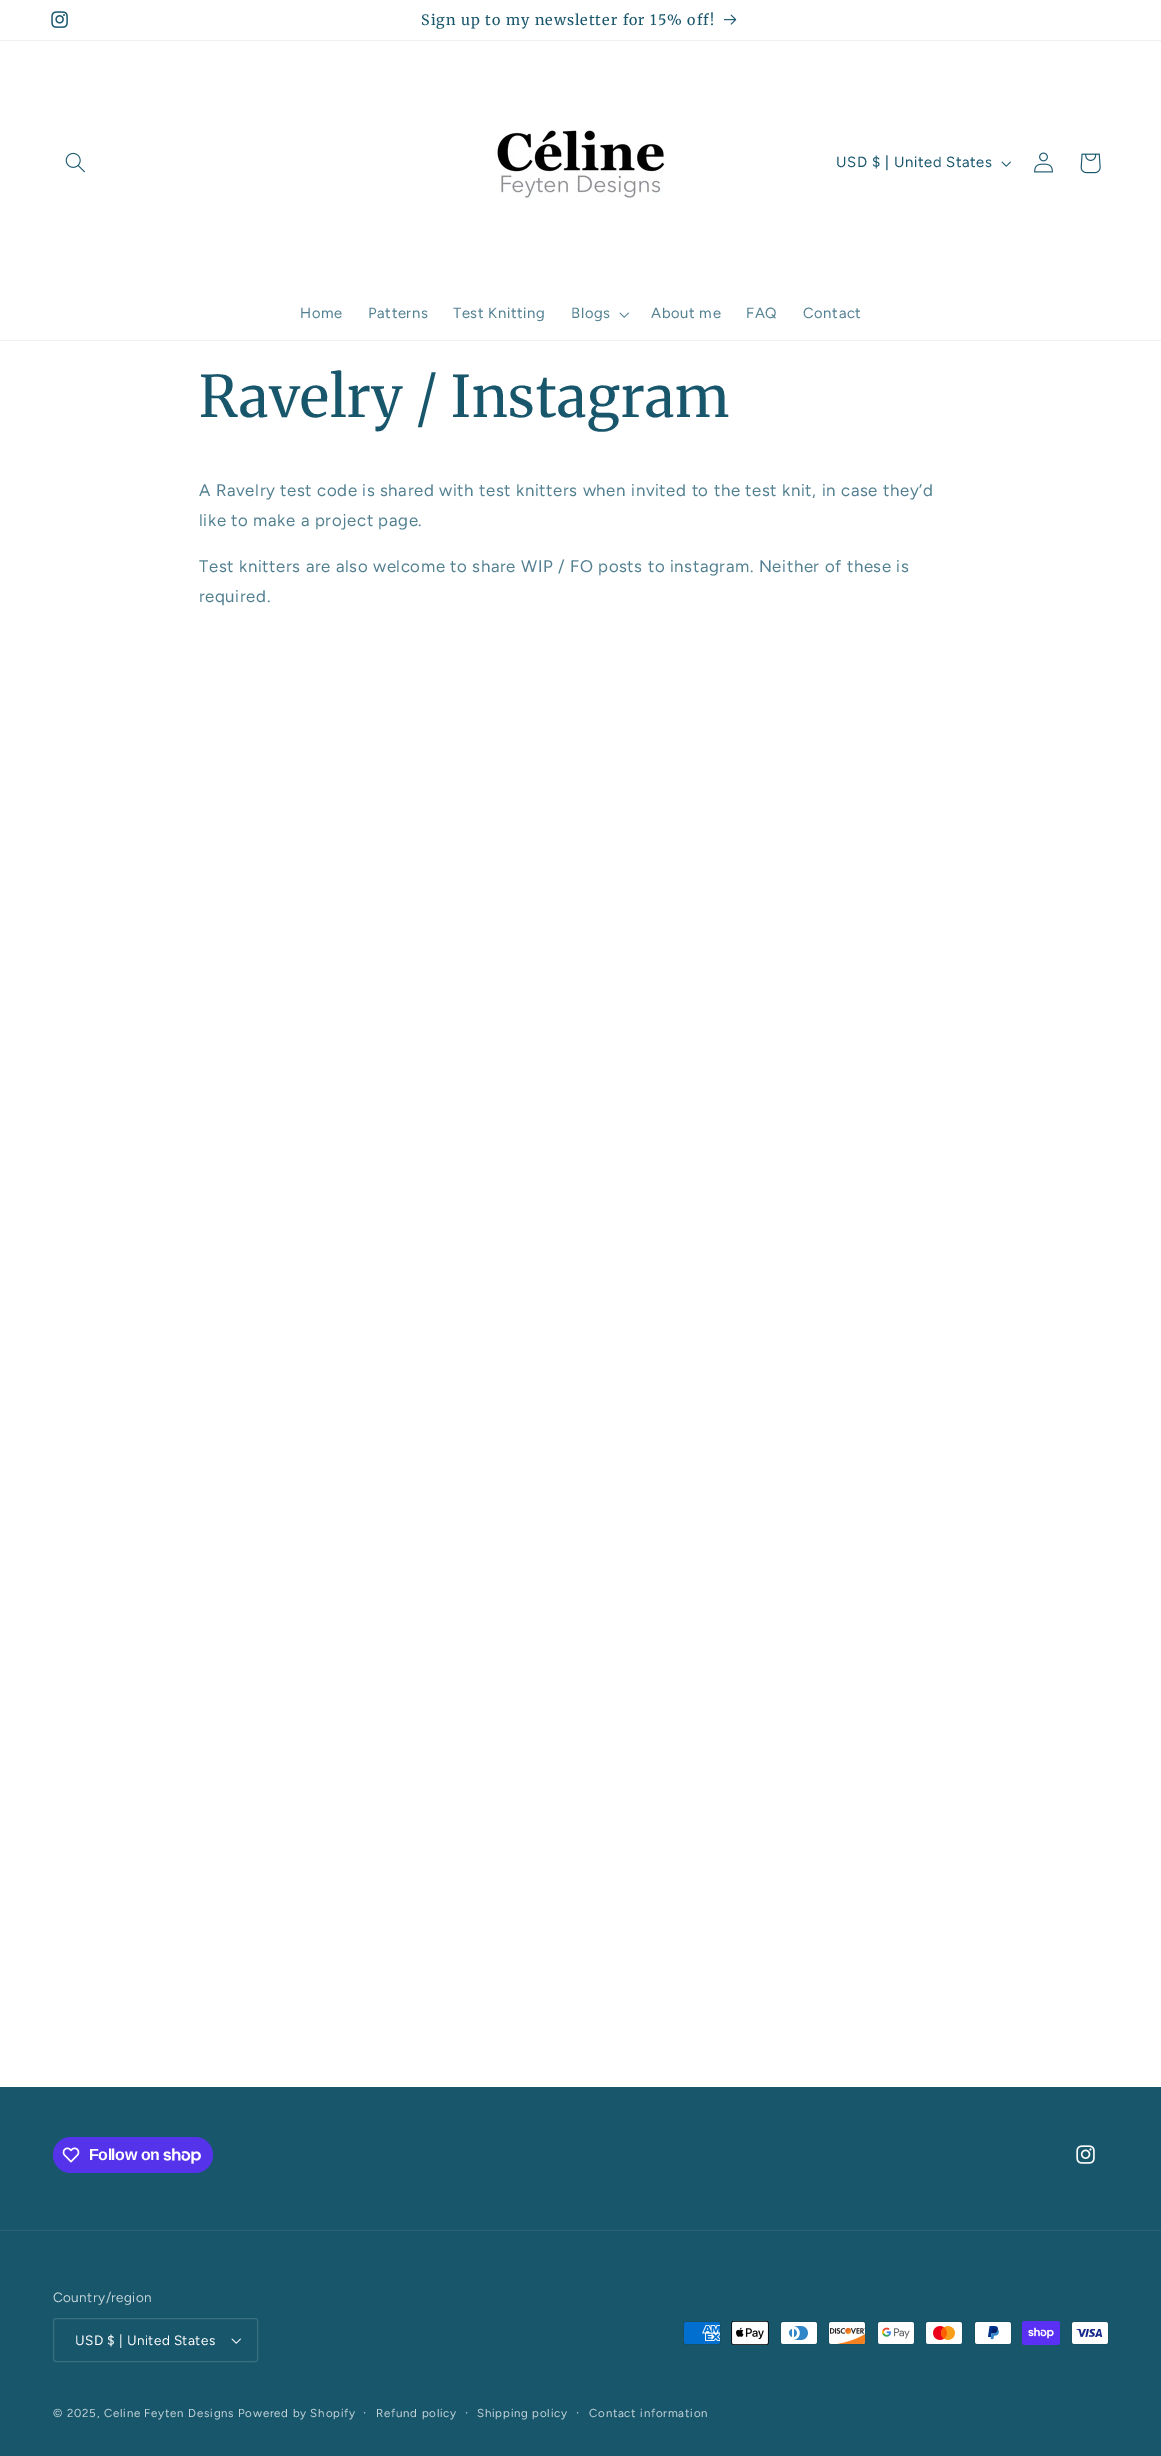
%!PS-Adobe-3.0
%%BoundingBox: 0 0 1161 2456
%%LanguageLevel: 3
%%Pages: 1
%%EndComments
%%BeginProlog
/rrect { 5 dict begin { /r /h /w /y /x } { exch def } forall
  x r add y moveto x w add y 2 copy h add r arct x w add y h add x 1 index r arct
  x y h add x y r arct x y 2 copy exch w add exch r arct closepath end } def
/drawimage { 5 dict begin { /h /w /y /x /name } { exch def } forall
  gsave x y translate w h scale
  w h 8 [w 0 0 h 0 0] name (r) file false 3 colorimage grestore end } def
%%EndProlog
%%BeginSetup
<< /PageSize [1161 2456] >> setpagedevice
%%EndSetup
%%Page: 1 1
0 2456 translate 1 -1 scale
4 setmiterlimit
1 setgray
0 0 1161 2456 rectfill
0.929 0.945 0.953 setrgbcolor
0 40 1161 1 rectfill
(images/1.raw) 51 11 17 17 drawimage
(images/2.raw) 724 14 13 11 drawimage
0 340 1161 1 rectfill
(images/3.raw) 65 152 20 21 drawimage
(images/4.raw) 495 129 171 72 drawimage
(images/5.raw) 1001 161 10 6 drawimage
(images/6.raw) 1034 152 19 21 drawimage
(images/7.raw) 1080 153 21 21 drawimage
(images/8.raw) 619 312 10 6 drawimage
0.094 0.337 0.424 setrgbcolor
0 2087 1161 369 rectfill
0.329 0.2 0.922 setrgbcolor
53 2137 160 36 18 rrect fill
(images/9.raw) 62 2147 18 16 drawimage
(images/10.raw) 163 2148 38 16 drawimage
(images/11.raw) 1076 2145 19 19 drawimage
0.165 0.388 0.471 setrgbcolor
0 2230 1161 1 rectfill
(images/12.raw) 231 2338 10 6 drawimage
0.227 0.435 0.51 setrgbcolor
53.5 2318.5 204 43 2.5 rrect stroke
(images/13.raw) 683 2321 38 24 drawimage
(images/14.raw) 731 2321 38 24 drawimage
(images/15.raw) 780 2321 38 24 drawimage
(images/16.raw) 828 2321 38 24 drawimage
(images/17.raw) 877 2321 38 24 drawimage
(images/18.raw) 925 2321 38 24 drawimage
(images/19.raw) 974 2321 38 24 drawimage
(images/20.raw) 1022 2321 38 24 drawimage
(images/21.raw) 1071 2321 38 24 drawimage
/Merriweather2-Regular [14.3 0 0 -14.3 0 0] selectfont
0.094 0.337 0.424 setrgbcolor
421 25 moveto 1.05 0 (Sign up to my newsletter for 15% off!) ashow
/Figtree-Regular [14.75 0 0 -14.75 0 0] selectfont
836 167 moveto 0.63 0 (USD $ | United States) ashow
0.322 0.502 0.569 setrgbcolor
300 318 moveto 0.63 0 (Home) ashow
368 318 moveto 0.63 0 (Patterns) ashow
453 318 moveto 0.63 0 (Test Knitting) ashow
571 318 moveto 0.63 0 (Blogs) ashow
651 318 moveto 0.63 0 (About me) ashow
746 318 moveto 0.63 0 (FAQ) ashow
803 318 moveto 0.63 0 (Contact) ashow
/Merriweather-Regular [57.25 0 0 -57.25 0 0] selectfont
0.094 0.337 0.424 setrgbcolor
199 417 moveto 0.7 0 (Ravelry / Instagram) ashow
/Figtree-Regular [16.8 0 0 -16.8 0 0] selectfont
0.322 0.502 0.569 setrgbcolor
199 496 moveto 0.63 0 (A Ravelry test code is shared with test knitters when invited to the test knit, in case they’d) ashow
199 526 moveto 0.63 0 (like to make a project page.) ashow
199 572 moveto 0.63 0 (Test knitters are also welcome to share WIP / FO posts to instagram. Neither of these is) ashow
199 602 moveto 0.63 0 (required.) ashow
/LiberationSans-Bold [16 0 0 -16 0 0] selectfont
1 setgray
89 2160 moveto -0.5 0 (Follow on) ashow
/Figtree-Regular [13.6 0 0 -13.6 0 0] selectfont
0.765 0.827 0.847 setrgbcolor
53 2302 moveto 0.4 0 (Country/region) ashow
1 setgray
75 2345 moveto 0.4 0 (USD $ | United States) ashow
/Figtree-Regular [11.55 0 0 -11.55 0 0] selectfont
0.765 0.827 0.847 setrgbcolor
53 2417 moveto 0.75 0 (© 2025, Celine Feyten Designs Powered by Shopify) ashow
/Figtree-Regular [13 0 0 -13 0 0] selectfont
363 2417 moveto 0.75 0 (·) ashow
/Figtree-Regular [11.55 0 0 -11.55 0 0] selectfont
376 2417 moveto 0.75 0 (Refund policy) ashow
/Figtree-Regular [13 0 0 -13 0 0] selectfont
465 2417 moveto 0.75 0 (·) ashow
/Figtree-Regular [11.55 0 0 -11.55 0 0] selectfont
477 2417 moveto 0.75 0 (Shipping policy) ashow
/Figtree-Regular [13 0 0 -13 0 0] selectfont
576 2417 moveto 0.75 0 (·) ashow
/Figtree-Regular [11.55 0 0 -11.55 0 0] selectfont
589 2417 moveto 0.75 0 (Contact information) ashow
showpage
%%EOF
